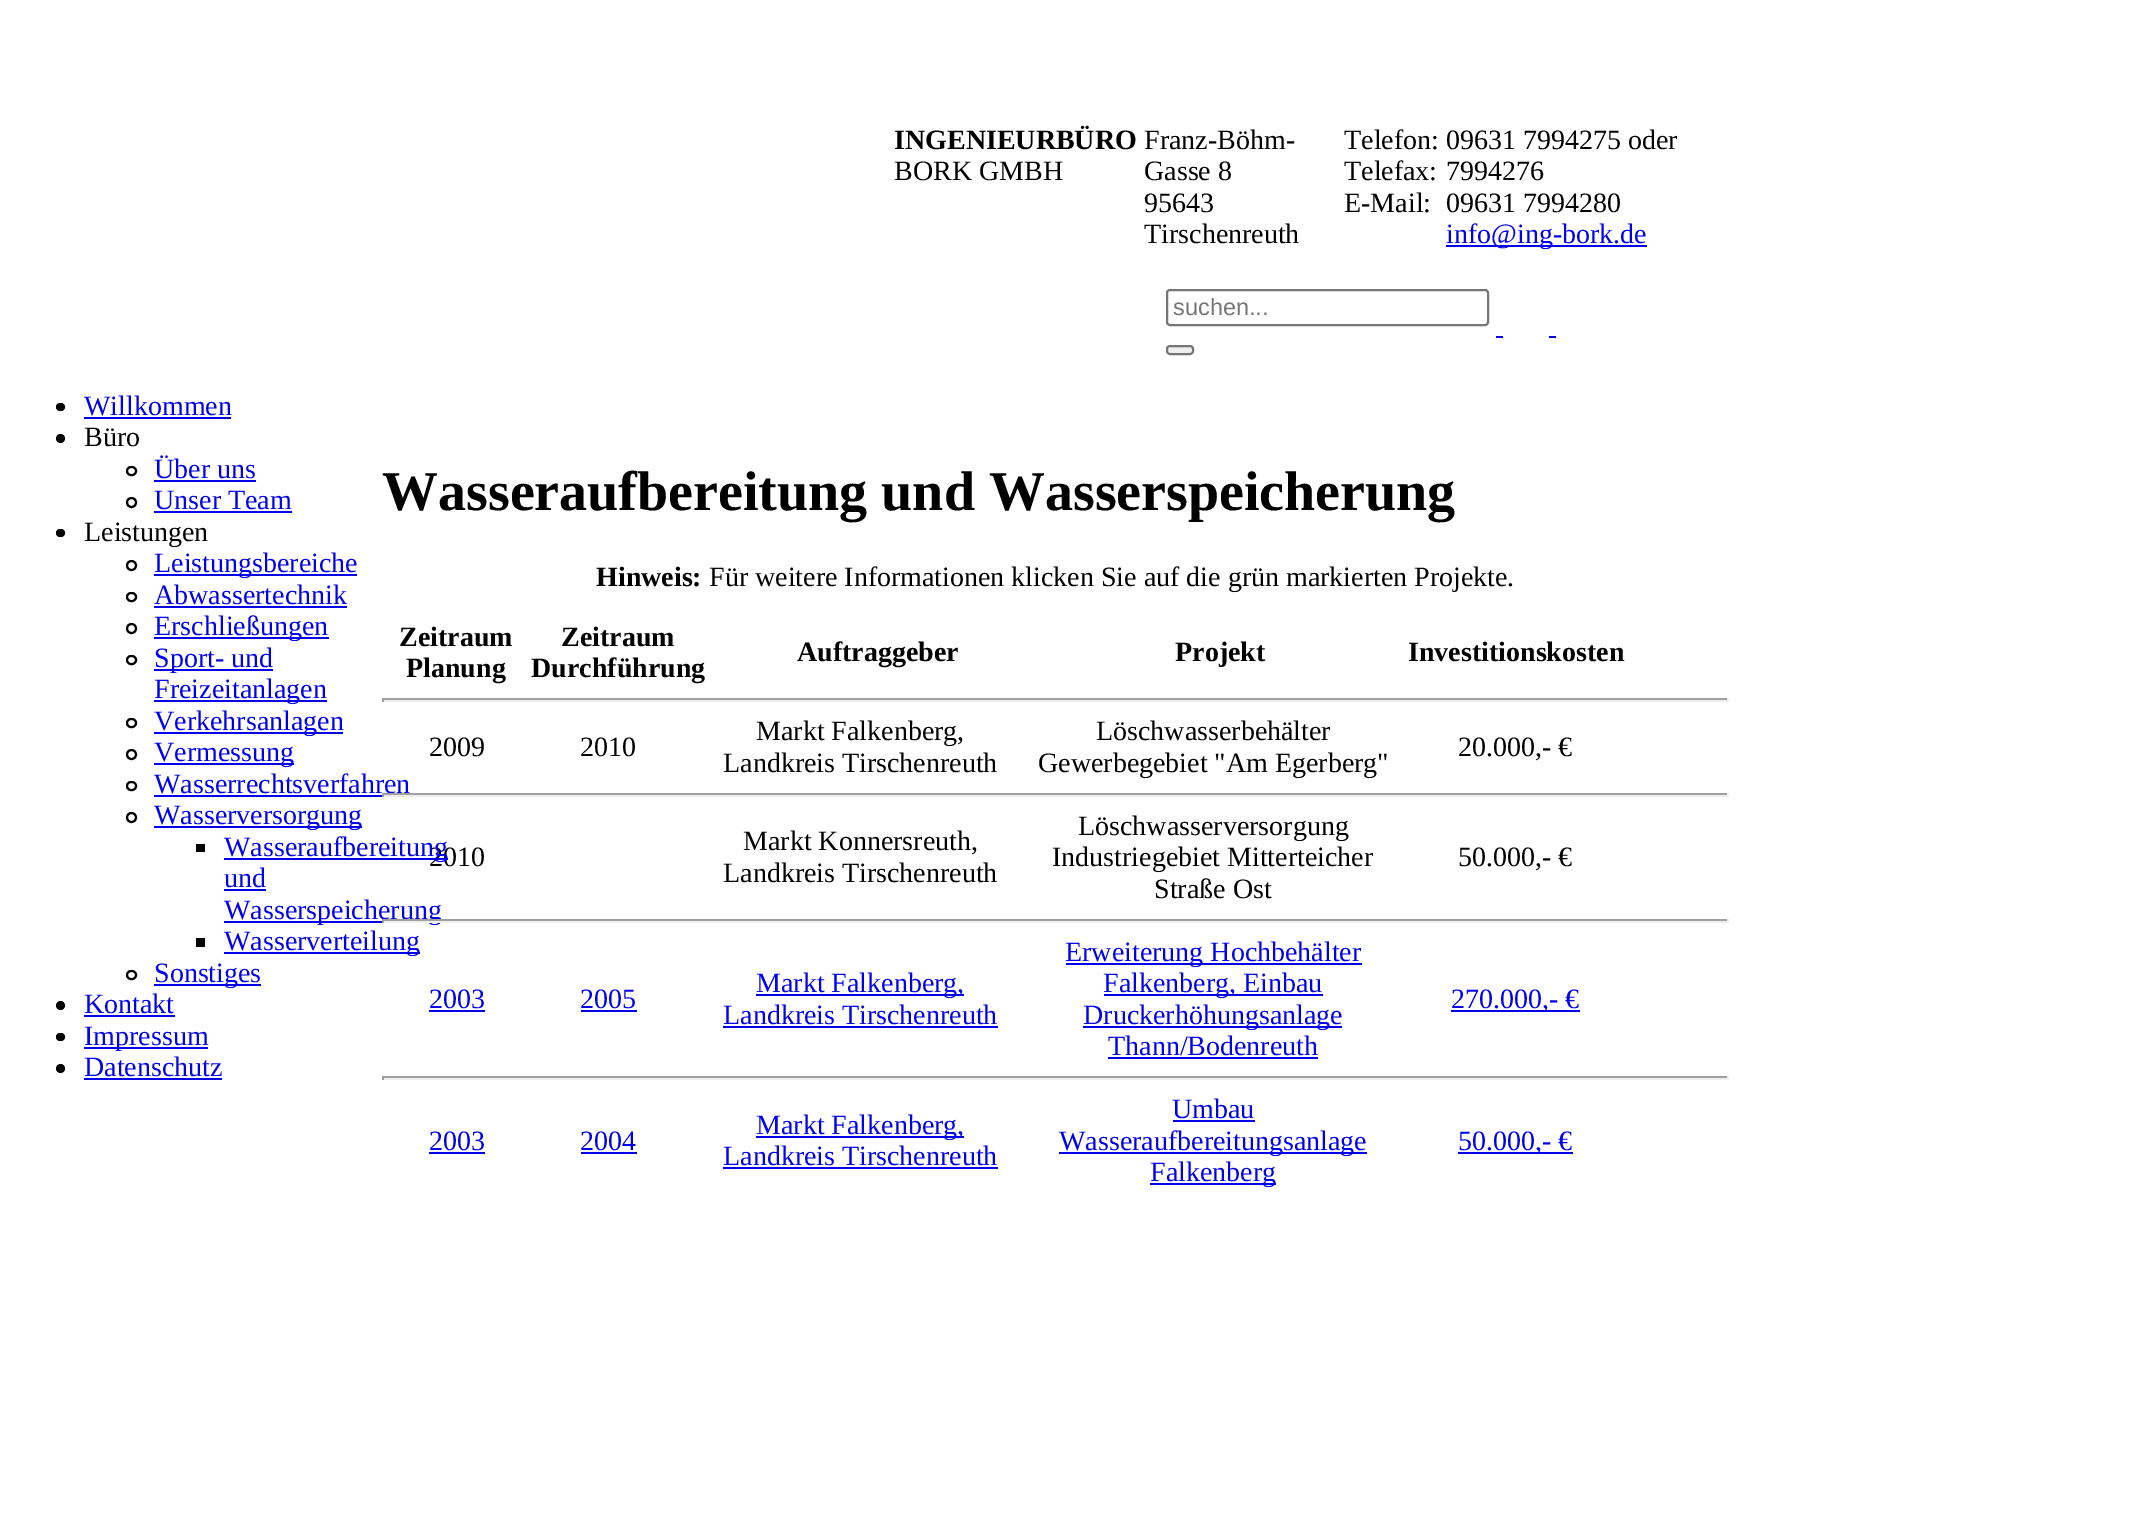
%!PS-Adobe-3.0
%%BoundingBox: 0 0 2129 1530
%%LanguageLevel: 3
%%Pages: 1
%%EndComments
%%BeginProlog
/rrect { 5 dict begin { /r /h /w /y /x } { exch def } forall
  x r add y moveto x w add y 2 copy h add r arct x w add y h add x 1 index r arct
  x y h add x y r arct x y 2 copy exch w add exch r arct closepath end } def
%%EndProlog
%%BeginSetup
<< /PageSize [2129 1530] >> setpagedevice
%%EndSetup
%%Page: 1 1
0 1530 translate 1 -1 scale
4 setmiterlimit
1 setgray
0 0 2129 1530 rectfill
0 0 0.933 setrgbcolor
1446 245 201 2 rectfill
0.463 setgray
2 setlinewidth
1167 290 321 35 3 rrect stroke
0.937 setgray
1167 346 26 8 3 rrect gsave fill grestore
0.463 setgray
stroke
0 0 0.933 setrgbcolor
1496 336 7 2 rectfill
1549 336 7 2 rectfill
0 setgray
56 403 9 8 4 rrect fill
0 0 0.933 setrgbcolor
84 417 147 2 rectfill
0 setgray
newpath 60.5 438.5 4.5 0 360 arc closepath fill
127 467 9 8 4 rrect stroke
0 0 0.933 setrgbcolor
154 480 102 2 rectfill
0 setgray
newpath 131.5 502.5 4.5 0 360 arc closepath stroke
0 0 0.933 setrgbcolor
154 511 138 2 rectfill
0 setgray
56 529 9 8 4 rrect fill
newpath 131.5 565.5 4.5 0 360 arc closepath stroke
0 0 0.933 setrgbcolor
154 574 203 2 rectfill
0 setgray
127 593 9 8 4 rrect stroke
0 0 0.933 setrgbcolor
154 606 193 2 rectfill
0 setgray
newpath 131.5 628.5 4.5 0 360 arc closepath stroke
0 0 0.933 setrgbcolor
154 637 175 2 rectfill
0 setgray
127 656 9 8 4 rrect stroke
0 0 0.933 setrgbcolor
154 669 119 2 rectfill
154 700 173 2 rectfill
0 setgray
127 719 9 8 4 rrect stroke
0 0 0.933 setrgbcolor
154 732 189 2 rectfill
0 setgray
newpath 131.5 754.5 4.5 0 360 arc closepath stroke
0 0 0.933 setrgbcolor
154 763 140 2 rectfill
0 setgray
127 782 9 8 4 rrect stroke
0 0 0.933 setrgbcolor
154 795 228 2 rectfill
0 setgray
newpath 131.5 817.5 4.5 0 360 arc closepath stroke
0 0 0.933 setrgbcolor
154 826 208 2 rectfill
0 setgray
196 844 9 8 rectfill
0 0 0.933 setrgbcolor
224 889 42 2 rectfill
224 921 158 2 rectfill
0 setgray
196 938 9 9 rectfill
0 0 0.933 setrgbcolor
224 952 196 2 rectfill
0 setgray
127 971 9 8 4 rrect stroke
0 0 0.933 setrgbcolor
154 984 107 2 rectfill
0 setgray
newpath 60.5 1005.5 4.5 0 360 arc closepath fill
0 0 0.933 setrgbcolor
84 1015 91 2 rectfill
0 setgray
56 1033 9 8 4 rrect fill
0 0 0.933 setrgbcolor
84 1047 124 2 rectfill
0 setgray
newpath 60.5 1068.5 4.5 0 360 arc closepath fill
0 0 0.933 setrgbcolor
84 1078 138 2 rectfill
0.624 setgray
382 698 1347 2 rectfill
0.933 setgray
1727 698 2 4 rectfill
382 700 1347 2 rectfill
0.624 setgray
382 698 2 4 rectfill
0 0 0.933 setrgbcolor
429 1010 56 2 rectfill
581 1010 56 2 rectfill
756 994 208 2 rectfill
723 1026 275 2 rectfill
1066 963 296 2 rectfill
1104 994 219 2 rectfill
1083 1026 259 2 rectfill
1108 1057 210 2 rectfill
1451 1010 129 2 rectfill
0.624 setgray
382 1076 1347 2 rectfill
0.933 setgray
1727 1076 2 4 rectfill
382 1078 1347 2 rectfill
0.624 setgray
382 1076 2 4 rectfill
0 0 0.933 setrgbcolor
429 1152 56 2 rectfill
581 1152 56 2 rectfill
756 1136 208 2 rectfill
723 1167 275 2 rectfill
1173 1120 82 2 rectfill
1059 1152 308 2 rectfill
1150 1183 126 2 rectfill
1458 1152 115 2 rectfill
/LiberationSerif-Bold [28 0 0 -28 0 0] selectfont
0 setgray
894 149 moveto (INGENIEURBÜRO) show
/LiberationSerif-Regular [28 0 0 -28 0 0] selectfont
894 180 moveto (BORK GMBH) show
1144 149 moveto (Franz-Böhm-) show
1144 180 moveto (Gasse 8) show
1144 212 moveto (95643) show
1144 243 moveto (Tirschenreuth) show
1344 149 moveto (Telefon: 09631 7994275 oder) show
1344 180 moveto (Telefax:) show
1344 212 moveto (E-Mail:) show
1446 180 moveto (7994276) show
1446 212 moveto (09631 7994280) show
0 0 0.933 setrgbcolor
1446 243 moveto (info@ing-bork.de) show
/LiberationSans-Regular [23.5 0 0 -23.5 0 0] selectfont
0.459 setgray
1173 315 moveto (suchen...) show
/LiberationSerif-Regular [28 0 0 -28 0 0] selectfont
0 0 0.933 setrgbcolor
84 415 moveto (Willkommen) show
0 setgray
84 446 moveto (Büro) show
0 0 0.933 setrgbcolor
154 478 moveto (Über uns) show
154 509 moveto (Unser Team) show
0 setgray
84 541 moveto (Leistungen) show
0 0 0.933 setrgbcolor
154 572 moveto (Leistungsbereiche) show
154 604 moveto (Abwassertechnik) show
154 635 moveto (Erschließungen) show
154 667 moveto (Sport- und) show
154 698 moveto (Freizeitanlagen) show
154 730 moveto (Verkehrsanlagen) show
154 761 moveto (Vermessung) show
154 793 moveto (Wasserrechtsverfahren) show
154 824 moveto (Wasserversorgung) show
224 887 moveto (und) show
224 919 moveto (Wasserspeicherung) show
224 950 moveto (Wasserverteilung) show
154 982 moveto (Sonstiges) show
84 1013 moveto (Kontakt) show
84 1045 moveto (Impressum) show
84 1076 moveto (Datenschutz) show
/LiberationSerif-Bold [56 0 0 -56 0 0] selectfont
0 setgray
382 510 moveto (Wasseraufbereitung und Wasserspeicherung) show
/LiberationSerif-Bold [28 0 0 -28 0 0] selectfont
596 586 moveto (Hinweis:) show
/LiberationSerif-Regular [28 0 0 -28 0 0] selectfont
709 586 moveto (Für weitere Informationen klicken Sie auf die grün markierten Projekte.) show
/LiberationSerif-Bold [28 0 0 -28 0 0] selectfont
399 646 moveto (Zeitraum) show
406 677 moveto (Planung) show
561 646 moveto (Zeitraum) show
531 677 moveto (Durchführung) show
797 661 moveto (Auftraggeber) show
1175 661 moveto (Projekt) show
1408 661 moveto (Investitionskosten) show
/LiberationSerif-Regular [28 0 0 -28 0 0] selectfont
429 756 moveto (2009) show
580 756 moveto (2010) show
756 740 moveto (Markt Falkenberg,) show
723 772 moveto (Landkreis Tirschenreuth) show
1096 740 moveto (Löschwasserbehälter) show
1038 772 moveto (Gewerbegebiet "Am Egerberg") show
1458 756 moveto (20.000,- €) show
0.624 setgray
382 793 1347 2 rectfill
0.933 setgray
1727 793 2 4 rectfill
382 795 1347 2 rectfill
0.624 setgray
382 793 2 4 rectfill
0 setgray
429 866 moveto (2010) show
0 0 0.933 setrgbcolor
224 858 224 2 rectfill
224 856 moveto (Wasseraufbereitung) show
0 setgray
743 850 moveto (Markt Konnersreuth,) show
723 882 moveto (Landkreis Tirschenreuth) show
1078 835 moveto (Löschwasserversorgung) show
1052 866 moveto (Industriegebiet Mitterteicher) show
1154 898 moveto (Straße Ost) show
1458 866 moveto (50.000,- €) show
0.624 setgray
382 919 1347 2 rectfill
0.933 setgray
1727 919 2 4 rectfill
382 921 1347 2 rectfill
0.624 setgray
382 919 2 4 rectfill
0 0 0.933 setrgbcolor
429 1008 moveto (2003) show
580 1008 moveto (2005) show
756 992 moveto (Markt Falkenberg,) show
723 1024 moveto (Landkreis Tirschenreuth) show
1065 961 moveto (Erweiterung Hochbehälter) show
1103 992 moveto (Falkenberg, Einbau) show
1083 1024 moveto (Druckerhöhungsanlage) show
1108 1055 moveto (Thann/Bodenreuth) show
1451 1008 moveto (270.000,- €) show
429 1150 moveto (2003) show
580 1150 moveto (2004) show
756 1134 moveto (Markt Falkenberg,) show
723 1165 moveto (Landkreis Tirschenreuth) show
1172 1118 moveto (Umbau) show
1059 1150 moveto (Wasseraufbereitungsanlage) show
1150 1181 moveto (Falkenberg) show
1458 1150 moveto (50.000,- €) show
showpage
%%EOF
